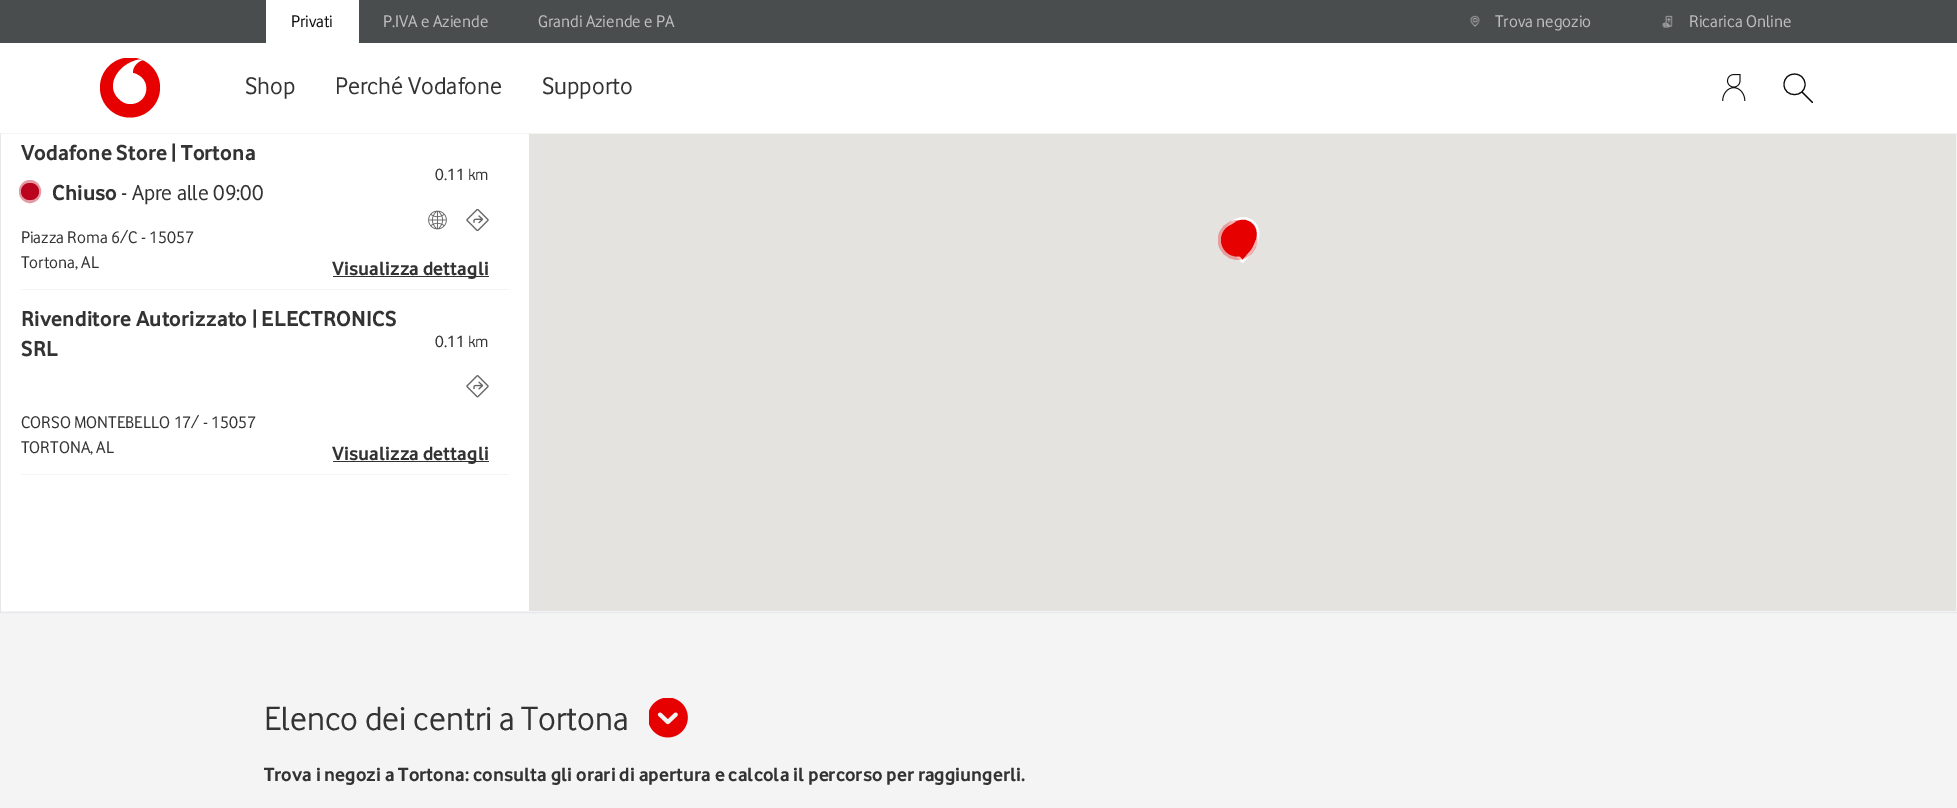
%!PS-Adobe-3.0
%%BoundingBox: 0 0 1957 808
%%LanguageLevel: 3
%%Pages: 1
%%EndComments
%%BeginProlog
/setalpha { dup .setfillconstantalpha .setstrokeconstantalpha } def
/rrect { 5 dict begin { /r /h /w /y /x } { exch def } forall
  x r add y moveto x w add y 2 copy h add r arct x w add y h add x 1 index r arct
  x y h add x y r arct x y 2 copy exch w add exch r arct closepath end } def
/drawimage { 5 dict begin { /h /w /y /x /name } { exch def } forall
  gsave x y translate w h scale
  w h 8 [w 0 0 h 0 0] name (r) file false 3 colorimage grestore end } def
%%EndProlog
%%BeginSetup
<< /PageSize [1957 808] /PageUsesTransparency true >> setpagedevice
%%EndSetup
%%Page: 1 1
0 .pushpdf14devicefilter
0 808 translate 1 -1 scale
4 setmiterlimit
0.957 setgray
0 0 1957 808 rectfill
0.898 0.906 0.922 setrgbcolor
0.5 -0.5 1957 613 rectstroke
0.29 0.302 0.306 setrgbcolor
0 0 1957 43 rectfill
1 setgray
266 0 93 43 rectfill
(images/1.raw) 1469 15 11 12 drawimage
(images/2.raw) 1662 15 11 13 drawimage
0 43 1957 90 rectfill
0.949 setgray
0 133 1 1 rectfill
gsave
100 58 60 60 rectclip
0.902 0 0 setrgbcolor
newpath 130 87.5 30 0 360 arc closepath fill
grestore
1 setgray
newpath 130 104 moveto 126 104 122 102 119 99 curveto 105 86 118 66 134 61 curveto 136 60 140 59 143 60 curveto 138 61 132 67 133 73 curveto 153 78 149 104 130 104 curveto closepath fill
(images/3.raw) 1722 74 24 27 drawimage
0.051 setgray
1.1 setlinewidth
1 setlinecap
1 setlinejoin
newpath 1802 92 moveto 1812.5 102.5 lineto 1805 84.5 moveto 1805 98 1784 98 1784 84.5 curveto 1784 70.5 1805 70.5 1805 84.5 curveto closepath stroke
1 setgray
1 134 528 477 rectfill
0.957 setgray
21 289 488 1 rectfill
0.89 0.604 0.643 setrgbcolor
3 setlinewidth
0 setlinecap
0 setlinejoin
20.5 181.5 19 20 9.5 rrect stroke
0.729 0.012 0.11 setrgbcolor
21 183 18 17 8.5 rrect fill
(images/4.raw) 428 210 19 20 drawimage
(images/5.raw) 466 209 23 22 drawimage
0.2 setgray
333 276 156 1 rectfill
0.957 setgray
21 474 488 1 rectfill
(images/6.raw) 466 375 23 23 drawimage
0.2 setgray
333 461 156 1 rectfill
0.898 0.89 0.875 setrgbcolor
529 134 1427 477 rectfill
0.902 0 0 setrgbcolor
newpath 1242 261 moveto 1251 253 1264 237 1256 225 curveto 1246 211 1222 221 1227 239 curveto 1230 247 1237 255 1242 261 curveto closepath eofill
1 setgray
2.3 setlinewidth
newpath 1242.5 261.5 moveto 1250.5 253 1264 237.5 1255.5 225 curveto 1246 210.5 1222 221.5 1227.5 238.5 curveto 1230 247 1236.5 255 1242.5 261.5 curveto closepath stroke
0.902 0 0 setrgbcolor
newpath 1237.5 240 16.5 0 360 arc closepath fill
gsave
1218 220 40 40 rectclip
0.3 setalpha
6.7 setlinewidth
newpath 1237.5 240 16.5 0 360 arc closepath stroke
grestore
(images/7.raw) 649 698 39 40 drawimage
/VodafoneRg-Regular [17.5 0 0 -17.5 0 0] selectfont
0.051 setgray
291 27 moveto (Privati) show
0.745 setgray
383 27 moveto (P.IVA e Aziende) show
538 27 moveto (Grandi Aziende e PA) show
1495 27 moveto (Trova negozio) show
1689 27 moveto (Ricarica Online) show
/VodafoneRg-Regular [25 0 0 -25 0 0] selectfont
0.2 setgray
245 94 moveto (Shop) show
335 94 moveto (Perché Vodafone) show
542 94 moveto (Supporto) show
/VodafoneRg-Bold [22.5 0 0 -22.5 0 0] selectfont
21 160 moveto (Vodafone Store | Tortona) show
/VodafoneRg-Regular [17 0 0 -17 0 0] selectfont
435 180 moveto (0.11 km) show
/VodafoneRg-Bold [22.5 0 0 -22.5 0 0] selectfont
52 200 moveto (Chiuso) show
/VodafoneRg-Regular [22.5 0 0 -22.5 0 0] selectfont
121 200 moveto (- Apre alle 09:00) show
/VodafoneRg-Regular [17.5 0 0 -17.5 0 0] selectfont
21 243 moveto (Piazza Roma 6/C - 15057) show
21 268 moveto (Tortona, AL) show
/VodafoneRg-Bold [20 0 0 -20 0 0] selectfont
332 275 moveto (Visualizza dettagli) show
/VodafoneRg-Bold [22.5 0 0 -22.5 0 0] selectfont
21 326 moveto (Rivenditore Autorizzato | ELECTRONICS) show
21 356 moveto (SRL) show
/VodafoneRg-Regular [17 0 0 -17 0 0] selectfont
435 347 moveto (0.11 km) show
/VodafoneRg-Regular [17.5 0 0 -17.5 0 0] selectfont
21 428 moveto (CORSO MONTEBELLO 17/ - 15057) show
21 453 moveto (TORTONA, AL) show
/VodafoneRg-Bold [20 0 0 -20 0 0] selectfont
332 460 moveto (Visualizza dettagli) show
/VodafoneRg-Regular [35 0 0 -35 0 0] selectfont
264 730 moveto (Elenco dei centri a Tortona) show
/VodafoneRg-Bold [20 0 0 -20 0 0] selectfont
264 781 moveto (Trova i negozi a Tortona: consulta gli orari di apertura e calcola il percorso per raggiungerli.) show
.poppdf14devicefilter showpage
%%EOF
